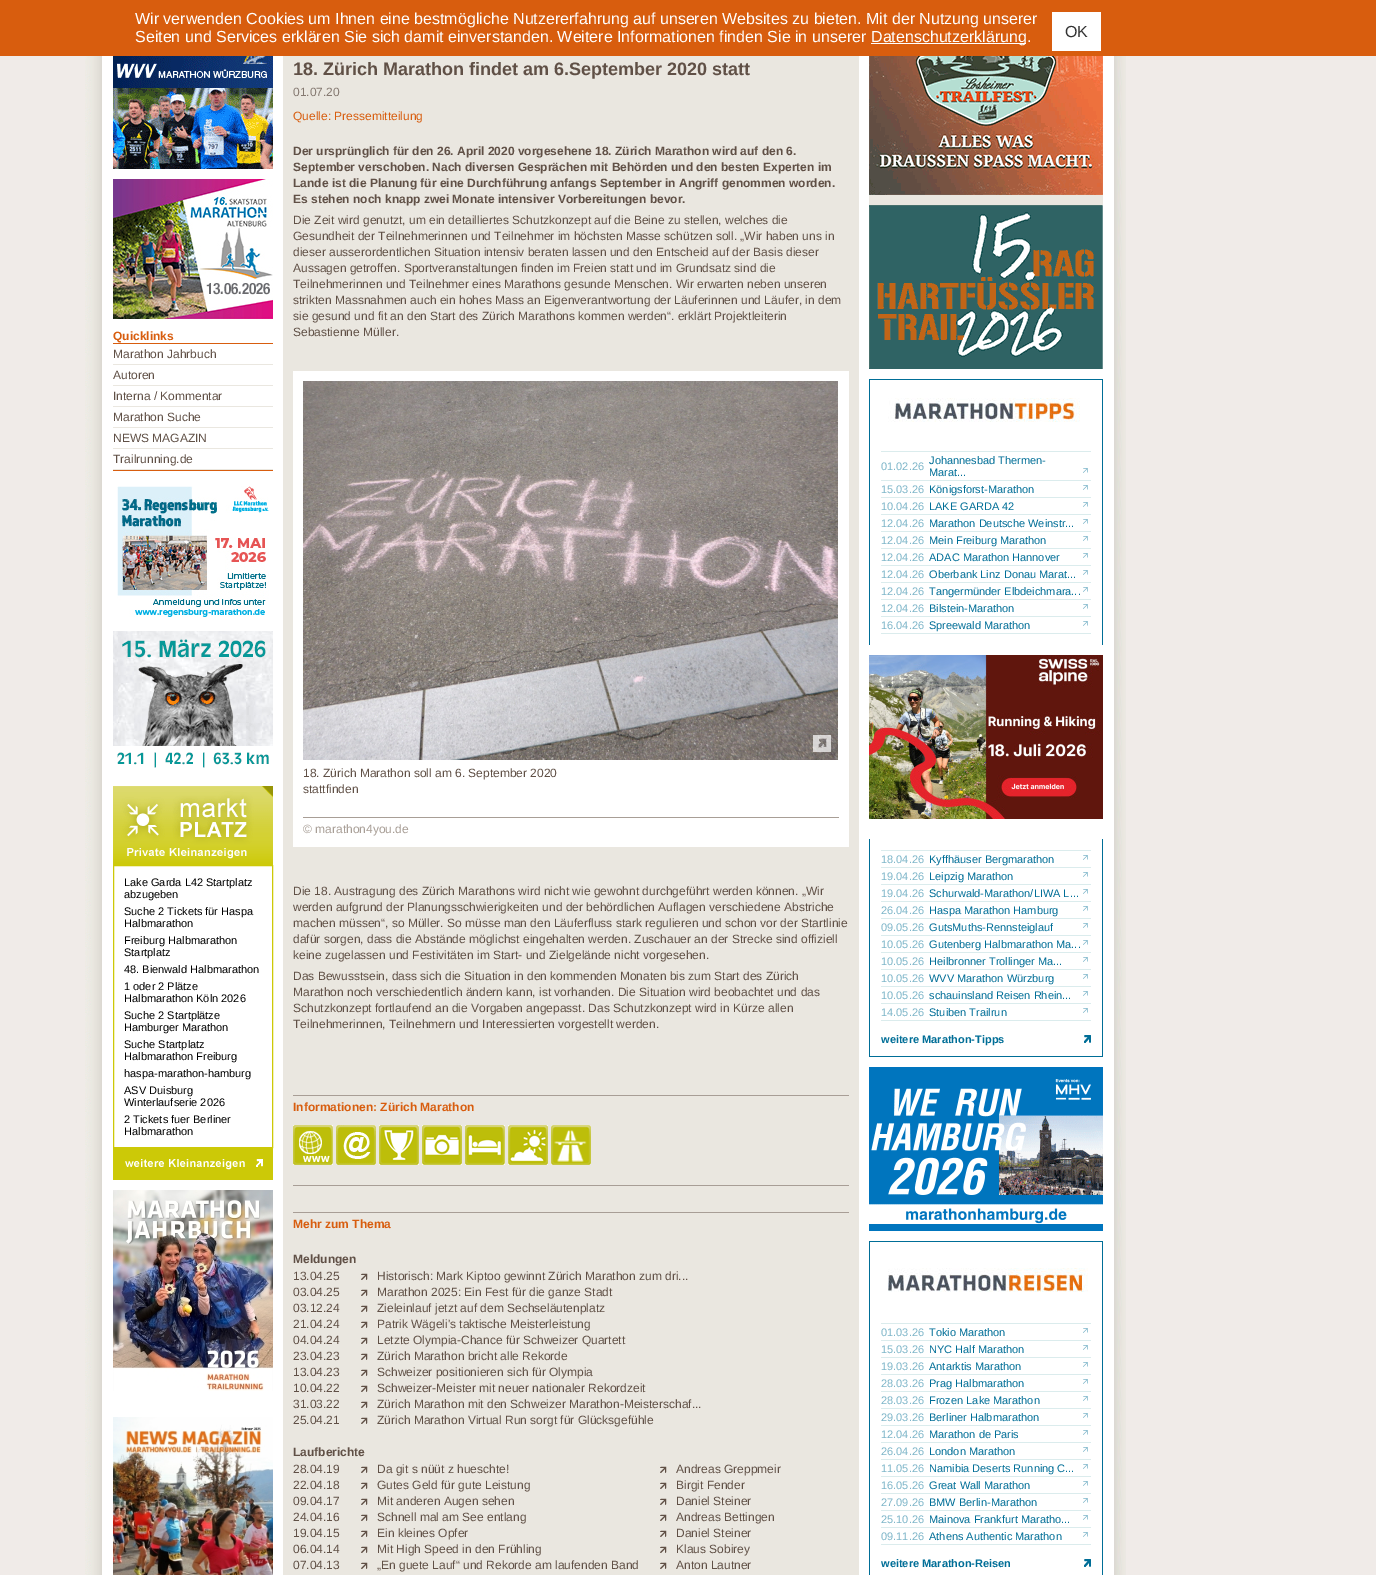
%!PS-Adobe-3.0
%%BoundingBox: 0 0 1376 1575
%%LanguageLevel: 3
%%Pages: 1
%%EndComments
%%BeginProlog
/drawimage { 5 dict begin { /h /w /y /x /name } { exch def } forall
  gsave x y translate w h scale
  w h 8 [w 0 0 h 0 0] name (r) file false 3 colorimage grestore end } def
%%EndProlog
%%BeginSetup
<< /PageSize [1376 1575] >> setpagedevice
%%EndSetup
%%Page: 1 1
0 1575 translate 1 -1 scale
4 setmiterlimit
0.941 0.922 0.91 setrgbcolor
0 0 1376 1575 rectfill
0.847 0.365 0.055 setrgbcolor
0 0 1376 56 rectfill
1 setgray
871 43 155 1 rectfill
1052 12 49 39 rectfill
(images/1.raw) 85 56 1041 1519 drawimage
(images/2.raw) 113 56 160 113 drawimage
(images/3.raw) 113 179 160 140 drawimage
0.847 0.365 0.055 setrgbcolor
113 470 160 1 rectfill
113 343 160 1 rectfill
0.918 0.906 0.878 setrgbcolor
113 364 160 1 rectfill
113 385 160 1 rectfill
113 406 160 1 rectfill
113 427 160 1 rectfill
113 448 160 1 rectfill
113 469 160 1 rectfill
(images/4.raw) 117 486 152 131 drawimage
(images/5.raw) 113 631 160 137 drawimage
(images/6.raw) 113 786 160 79 drawimage
0.804 0.788 0.024 setrgbcolor
113.5 865.5 159 282 rectstroke
(images/7.raw) 113 1148 160 32 drawimage
(images/8.raw) 113 1190 160 201 drawimage
(images/9.raw) 113 1417 160 158 drawimage
0.918 0.906 0.878 setrgbcolor
283 56 576 1519 rectfill
1 setgray
293 371 556 476 rectfill
(images/10.raw) 303 381 535 379 drawimage
(images/11.raw) 813 735 18 17 drawimage
0.659 0.62 0.588 setrgbcolor
303 817 536 1 rectfill
293 1095 556 1 rectfill
293 1185 556 1 rectfill
(images/12.raw) 293 1125 40 40 drawimage
(images/13.raw) 336 1125 40 40 drawimage
(images/14.raw) 379 1125 40 40 drawimage
(images/15.raw) 422 1125 40 40 drawimage
(images/16.raw) 465 1125 40 40 drawimage
(images/17.raw) 508 1125 40 40 drawimage
(images/18.raw) 551 1125 40 40 drawimage
293 1212 556 1 rectfill
(images/19.raw) 361 1273 7 7 drawimage
(images/19.raw) 361 1289 7 7 drawimage
(images/19.raw) 361 1305 7 7 drawimage
(images/19.raw) 361 1321 7 7 drawimage
(images/19.raw) 361 1337 7 7 drawimage
(images/19.raw) 361 1353 7 7 drawimage
(images/19.raw) 361 1369 7 7 drawimage
(images/19.raw) 361 1385 7 7 drawimage
(images/19.raw) 361 1401 7 7 drawimage
(images/19.raw) 361 1417 7 7 drawimage
(images/19.raw) 361 1466 7 7 drawimage
(images/19.raw) 660 1466 7 7 drawimage
(images/19.raw) 361 1482 7 7 drawimage
(images/19.raw) 660 1482 7 7 drawimage
(images/19.raw) 361 1498 7 7 drawimage
(images/19.raw) 660 1498 7 7 drawimage
(images/19.raw) 361 1514 7 7 drawimage
(images/19.raw) 660 1514 7 7 drawimage
(images/19.raw) 361 1530 7 7 drawimage
(images/19.raw) 660 1530 7 7 drawimage
(images/19.raw) 361 1546 7 7 drawimage
(images/19.raw) 660 1546 7 7 drawimage
(images/19.raw) 361 1562 7 7 drawimage
(images/19.raw) 660 1562 7 7 drawimage
0.918 0.906 0.878 setrgbcolor
869 195 234 10 rectfill
(images/20.raw) 869 56 234 139 drawimage
(images/21.raw) 869 205 234 164 drawimage
0 0.431 0.592 setrgbcolor
869 379 234 266 rectfill
1 setgray
870 380 232 265 rectfill
(images/22.raw) 888 398 192 24 drawimage
0.859 0.925 0.929 setrgbcolor
881 451 210 1 rectfill
(images/23.raw) 1083 468 5 5 drawimage
881 480 210 1 rectfill
(images/23.raw) 1083 485 5 5 drawimage
881 497 210 1 rectfill
(images/23.raw) 1083 502 5 5 drawimage
881 514 210 1 rectfill
(images/23.raw) 1083 519 5 5 drawimage
881 531 210 1 rectfill
(images/23.raw) 1083 536 5 5 drawimage
881 548 210 1 rectfill
(images/23.raw) 1083 553 5 5 drawimage
881 565 210 1 rectfill
(images/23.raw) 1083 570 5 5 drawimage
881 582 210 1 rectfill
(images/23.raw) 1083 587 5 5 drawimage
881 599 210 1 rectfill
(images/23.raw) 1083 604 5 5 drawimage
881 616 210 1 rectfill
(images/23.raw) 1083 621 5 5 drawimage
881 633 210 1 rectfill
(images/24.raw) 869 655 234 164 drawimage
0 0.431 0.592 setrgbcolor
869 839 234 218 rectfill
1 setgray
870 839 232 217 rectfill
0.859 0.925 0.929 setrgbcolor
881 850 210 1 rectfill
(images/23.raw) 1083 855 5 5 drawimage
881 867 210 1 rectfill
(images/23.raw) 1083 872 5 5 drawimage
881 884 210 1 rectfill
(images/23.raw) 1083 889 5 5 drawimage
881 901 210 1 rectfill
(images/23.raw) 1083 906 5 5 drawimage
881 918 210 1 rectfill
(images/23.raw) 1083 923 5 5 drawimage
881 935 210 1 rectfill
(images/23.raw) 1083 940 5 5 drawimage
881 952 210 1 rectfill
(images/23.raw) 1083 957 5 5 drawimage
881 969 210 1 rectfill
(images/23.raw) 1083 974 5 5 drawimage
881 986 210 1 rectfill
(images/23.raw) 1083 991 5 5 drawimage
881 1003 210 1 rectfill
(images/23.raw) 1083 1008 5 5 drawimage
881 1020 210 1 rectfill
(images/25.raw) 1084 1035 7 8 drawimage
(images/26.raw) 869 1067 234 164 drawimage
0 0.431 0.592 setrgbcolor
869 1241 234 334 rectfill
1 setgray
870 1242 232 333 rectfill
(images/27.raw) 888 1268 200 24 drawimage
0.859 0.925 0.929 setrgbcolor
881 1323 210 1 rectfill
(images/23.raw) 1083 1328 5 5 drawimage
881 1340 210 1 rectfill
(images/23.raw) 1083 1345 5 5 drawimage
881 1357 210 1 rectfill
(images/23.raw) 1083 1362 5 5 drawimage
881 1374 210 1 rectfill
(images/23.raw) 1083 1379 5 5 drawimage
881 1391 210 1 rectfill
(images/23.raw) 1083 1396 5 5 drawimage
881 1408 210 1 rectfill
(images/23.raw) 1083 1413 5 5 drawimage
881 1425 210 1 rectfill
(images/23.raw) 1083 1430 5 5 drawimage
881 1442 210 1 rectfill
(images/23.raw) 1083 1447 5 5 drawimage
881 1459 210 1 rectfill
(images/23.raw) 1083 1464 5 5 drawimage
881 1476 210 1 rectfill
(images/23.raw) 1083 1481 5 5 drawimage
881 1493 210 1 rectfill
(images/23.raw) 1083 1498 5 5 drawimage
881 1510 210 1 rectfill
(images/23.raw) 1083 1515 5 5 drawimage
881 1527 210 1 rectfill
(images/23.raw) 1083 1532 5 5 drawimage
881 1544 210 1 rectfill
(images/25.raw) 1084 1559 7 8 drawimage
/LiberationSans-Regular [16 0 0 -16 0 0] selectfont
1 setgray
135 24 moveto (Wir verwenden Cookies um Ihnen eine bestmögliche Nutzererfahrung auf unseren Websites zu bieten. Mit der Nutzung unserer) show
135 42 moveto (Seiten und Services erklären Sie sich damit einverstanden. Weitere Informationen finden Sie in unserer) show
871 42 moveto (Datenschutzerklärung.) show
0.2 setgray
1065 37 moveto (OK) show
/LiberationSans-Bold [12 0 0 -12 0 0] selectfont
0.847 0.365 0.055 setrgbcolor
113 340 moveto (Quicklinks) show
/LiberationSans-Regular [12 0 0 -12 0 0] selectfont
0.376 0.314 0.275 setrgbcolor
113 358 moveto (Marathon Jahrbuch) show
113 379 moveto (Autoren) show
113 400 moveto (Interna / Kommentar) show
113 421 moveto (Marathon Suche) show
113 442 moveto (NEWS MAGAZIN) show
113 463 moveto (Trailrunning.de) show
/LiberationSans-Regular [11 0 0 -11 0 0] selectfont
0 setgray
124 886 moveto (Lake Garda L42 Startplatz) show
124 898 moveto (abzugeben) show
124 915 moveto (Suche 2 Tickets für Haspa) show
124 927 moveto (Halbmarathon) show
124 944 moveto (Freiburg Halbmarathon) show
124 956 moveto (Startplatz) show
124 973 moveto (48. Bienwald Halbmarathon) show
124 990 moveto (1 oder 2 Plätze) show
124 1002 moveto (Halbmarathon Köln 2026) show
124 1019 moveto (Suche 2 Startplätze) show
124 1031 moveto (Hamburger Marathon) show
124 1048 moveto (Suche Startplatz) show
124 1060 moveto (Halbmarathon Freiburg) show
124 1077 moveto (haspa-marathon-hamburg) show
124 1094 moveto (ASV Duisburg) show
124 1106 moveto (Winterlaufserie 2026) show
124 1123 moveto (2 Tickets fuer Berliner) show
124 1135 moveto (Halbmarathon) show
/LiberationSans-Bold [18 0 0 -18 0 0] selectfont
0.376 0.314 0.275 setrgbcolor
293 75 moveto (18. Zürich Marathon findet am 6.September 2020 statt) show
/LiberationSans-Regular [12 0 0 -12 0 0] selectfont
0.522 0.475 0.443 setrgbcolor
293 96 moveto (01.07.20) show
0.847 0.365 0.055 setrgbcolor
293 120 moveto (Quelle: Pressemitteilung) show
/LiberationSans-Bold [12 0 0 -12 0 0] selectfont
0.376 0.314 0.275 setrgbcolor
293 155 moveto (Der ursprünglich für den 26. April 2020 vorgesehene 18. Zürich Marathon wird auf den 6.) show
293 171 moveto (September verschoben. Nach diversen Gesprächen mit Behörden und den besten Experten im) show
293 187 moveto (Lande ist die Planung für eine Durchführung anfangs September in Angriff genommen worden.) show
293 203 moveto (Es stehen noch knapp zwei Monate intensiver Vorbereitungen bevor.) show
/LiberationSans-Regular [12 0 0 -12 0 0] selectfont
293 224 moveto (Die Zeit wird genutzt, um ein detailliertes Schutzkonzept auf die Beine zu stellen, welches die) show
293 240 moveto (Gesundheit der Teilnehmerinnen und Teilnehmer im höchsten Masse schützen soll. „Wir haben uns in) show
293 256 moveto (dieser ausserordentlichen Situation intensiv beraten lassen und den Entscheid auf der Basis dieser) show
293 272 moveto (Aussagen getroffen. Sportveranstaltungen finden im Freien statt und im Grundsatz sind die) show
293 288 moveto (Teilnehmerinnen und Teilnehmer eines Marathons gesunde Menschen. Wir erwarten neben unseren) show
293 304 moveto (strikten Massnahmen auch ein hohes Mass an Eigenverantwortung der Läuferinnen und Läufer, in dem) show
293 320 moveto (sie gesund und fit an den Start des Zürich Marathons kommen werden“. erklärt Projektleiterin) show
293 336 moveto (Sebastienne Müller.) show
303 777 moveto (18. Zürich Marathon soll am 6. September 2020) show
303 793 moveto (stattfinden) show
0.659 0.62 0.588 setrgbcolor
303 833 moveto (© marathon4you.de) show
0.376 0.314 0.275 setrgbcolor
293 895 moveto (Die 18. Austragung des Zürich Marathons wird nicht wie gewohnt durchgeführt werden können. „Wir) show
293 911 moveto (werden aufgrund der Planungsschwierigkeiten und der behördlichen Auflagen verschiedene Abstriche) show
293 927 moveto (machen müssen“, so Müller. So müsse man den Läuferfluss stark regulieren und schon vor der Startlinie) show
293 943 moveto (dafür sorgen, dass die Abstände möglichst eingehalten werden. Zuschauer an der Strecke sind offiziell) show
293 959 moveto (keine zugelassen und Festivitäten im Start- und Zielgelände nicht vorgesehen.) show
293 980 moveto (Das Bewusstsein, dass sich die Situation in den kommenden Monaten bis zum Start des Zürich) show
293 996 moveto (Marathon noch verschiedentlich ändern kann, ist vorhanden. Die Situation wird beobachtet und das) show
293 1012 moveto (Schutzkonzept fortlaufend an die Vorgaben angepasst. Das Schutzkonzept wird in Kürze allen) show
293 1028 moveto (Teilnehmerinnen, Teilnehmern und Interessierten vorgestellt werden.) show
/LiberationSans-Bold [12 0 0 -12 0 0] selectfont
0.847 0.365 0.055 setrgbcolor
293 1111 moveto (Informationen: Zürich Marathon) show
293 1228 moveto (Mehr zum Thema) show
0.376 0.314 0.275 setrgbcolor
293 1263 moveto (Meldungen) show
/LiberationSans-Regular [12 0 0 -12 0 0] selectfont
293 1280 moveto (13.04.25) show
377 1280 moveto (Historisch: Mark Kiptoo gewinnt Zürich Marathon zum dri...) show
293 1296 moveto (03.04.25) show
377 1296 moveto (Marathon 2025: Ein Fest für die ganze Stadt) show
293 1312 moveto (03.12.24) show
377 1312 moveto (Zieleinlauf jetzt auf dem Sechseläutenplatz) show
293 1328 moveto (21.04.24) show
377 1328 moveto (Patrik Wägeli's taktische Meisterleistung) show
293 1344 moveto (04.04.24) show
377 1344 moveto (Letzte Olympia-Chance für Schweizer Quartett) show
293 1360 moveto (23.04.23) show
377 1360 moveto (Zürich Marathon bricht alle Rekorde) show
293 1376 moveto (13.04.23) show
377 1376 moveto (Schweizer positionieren sich für Olympia) show
293 1392 moveto (10.04.22) show
377 1392 moveto (Schweizer-Meister mit neuer nationaler Rekordzeit) show
293 1408 moveto (31.03.22) show
377 1408 moveto (Zürich Marathon mit den Schweizer Marathon-Meisterschaf...) show
293 1424 moveto (25.04.21) show
377 1424 moveto (Zürich Marathon Virtual Run sorgt für Glücksgefühle) show
/LiberationSans-Bold [12 0 0 -12 0 0] selectfont
293 1456 moveto (Laufberichte) show
/LiberationSans-Regular [12 0 0 -12 0 0] selectfont
293 1473 moveto (28.04.19) show
377 1473 moveto (Da git s nüüt z hueschte!) show
676 1473 moveto (Andreas Greppmeir) show
293 1489 moveto (22.04.18) show
377 1489 moveto (Gutes Geld für gute Leistung) show
676 1489 moveto (Birgit Fender) show
293 1505 moveto (09.04.17) show
377 1505 moveto (Mit anderen Augen sehen) show
676 1505 moveto (Daniel Steiner) show
293 1521 moveto (24.04.16) show
377 1521 moveto (Schnell mal am See entlang) show
676 1521 moveto (Andreas Bettingen) show
293 1537 moveto (19.04.15) show
377 1537 moveto (Ein kleines Opfer) show
676 1537 moveto (Daniel Steiner) show
293 1553 moveto (06.04.14) show
377 1553 moveto (Mit High Speed in den Frühling) show
676 1553 moveto (Klaus Sobirey) show
293 1569 moveto (07.04.13) show
377 1569 moveto („En guete Lauf“ und Rekorde am laufenden Band) show
676 1569 moveto (Anton Lautner) show
/LiberationSans-Regular [11 0 0 -11 0 0] selectfont
0.494 0.714 0.788 setrgbcolor
881 470 moveto (01.02.26) show
0 0.431 0.592 setrgbcolor
929 464 moveto (Johannesbad Thermen-) show
929 476 moveto (Marat...) show
0.494 0.714 0.788 setrgbcolor
881 493 moveto (15.03.26) show
0 0.431 0.592 setrgbcolor
929 493 moveto (Königsforst-Marathon) show
0.494 0.714 0.788 setrgbcolor
881 510 moveto (10.04.26) show
0 0.431 0.592 setrgbcolor
929 510 moveto (LAKE GARDA 42) show
0.494 0.714 0.788 setrgbcolor
881 527 moveto (12.04.26) show
0 0.431 0.592 setrgbcolor
929 527 moveto (Marathon Deutsche Weinstr...) show
0.494 0.714 0.788 setrgbcolor
881 544 moveto (12.04.26) show
0 0.431 0.592 setrgbcolor
929 544 moveto (Mein Freiburg Marathon) show
0.494 0.714 0.788 setrgbcolor
881 561 moveto (12.04.26) show
0 0.431 0.592 setrgbcolor
929 561 moveto (ADAC Marathon Hannover) show
0.494 0.714 0.788 setrgbcolor
881 578 moveto (12.04.26) show
0 0.431 0.592 setrgbcolor
929 578 moveto (Oberbank Linz Donau Marat...) show
0.494 0.714 0.788 setrgbcolor
881 595 moveto (12.04.26) show
0 0.431 0.592 setrgbcolor
929 595 moveto (Tangermünder Elbdeichmara...) show
0.494 0.714 0.788 setrgbcolor
881 612 moveto (12.04.26) show
0 0.431 0.592 setrgbcolor
929 612 moveto (Bilstein-Marathon) show
0.494 0.714 0.788 setrgbcolor
881 629 moveto (16.04.26) show
0 0.431 0.592 setrgbcolor
929 629 moveto (Spreewald Marathon) show
0.494 0.714 0.788 setrgbcolor
881 863 moveto (18.04.26) show
0 0.431 0.592 setrgbcolor
929 863 moveto (Kyffhäuser Bergmarathon) show
0.494 0.714 0.788 setrgbcolor
881 880 moveto (19.04.26) show
0 0.431 0.592 setrgbcolor
929 880 moveto (Leipzig Marathon) show
0.494 0.714 0.788 setrgbcolor
881 897 moveto (19.04.26) show
0 0.431 0.592 setrgbcolor
929 897 moveto (Schurwald-Marathon/LIWA L...) show
0.494 0.714 0.788 setrgbcolor
881 914 moveto (26.04.26) show
0 0.431 0.592 setrgbcolor
929 914 moveto (Haspa Marathon Hamburg) show
0.494 0.714 0.788 setrgbcolor
881 931 moveto (09.05.26) show
0 0.431 0.592 setrgbcolor
929 931 moveto (GutsMuths-Rennsteiglauf) show
0.494 0.714 0.788 setrgbcolor
881 948 moveto (10.05.26) show
0 0.431 0.592 setrgbcolor
929 948 moveto (Gutenberg Halbmarathon Ma...) show
0.494 0.714 0.788 setrgbcolor
881 965 moveto (10.05.26) show
0 0.431 0.592 setrgbcolor
929 965 moveto (Heilbronner Trollinger Ma...) show
0.494 0.714 0.788 setrgbcolor
881 982 moveto (10.05.26) show
0 0.431 0.592 setrgbcolor
929 982 moveto (WVV Marathon Würzburg) show
0.494 0.714 0.788 setrgbcolor
881 999 moveto (10.05.26) show
0 0.431 0.592 setrgbcolor
929 999 moveto (schauinsland Reisen Rhein...) show
0.494 0.714 0.788 setrgbcolor
881 1016 moveto (14.05.26) show
0 0.431 0.592 setrgbcolor
929 1016 moveto (Stuiben Trailrun) show
/LiberationSans-Bold [11 0 0 -11 0 0] selectfont
881 1043 moveto (weitere Marathon-Tipps) show
/LiberationSans-Regular [11 0 0 -11 0 0] selectfont
0.494 0.714 0.788 setrgbcolor
881 1336 moveto (01.03.26) show
0 0.431 0.592 setrgbcolor
929 1336 moveto (Tokio Marathon) show
0.494 0.714 0.788 setrgbcolor
881 1353 moveto (15.03.26) show
0 0.431 0.592 setrgbcolor
929 1353 moveto (NYC Half Marathon) show
0.494 0.714 0.788 setrgbcolor
881 1370 moveto (19.03.26) show
0 0.431 0.592 setrgbcolor
929 1370 moveto (Antarktis Marathon) show
0.494 0.714 0.788 setrgbcolor
881 1387 moveto (28.03.26) show
0 0.431 0.592 setrgbcolor
929 1387 moveto (Prag Halbmarathon) show
0.494 0.714 0.788 setrgbcolor
881 1404 moveto (28.03.26) show
0 0.431 0.592 setrgbcolor
929 1404 moveto (Frozen Lake Marathon) show
0.494 0.714 0.788 setrgbcolor
881 1421 moveto (29.03.26) show
0 0.431 0.592 setrgbcolor
929 1421 moveto (Berliner Halbmarathon) show
0.494 0.714 0.788 setrgbcolor
881 1438 moveto (12.04.26) show
0 0.431 0.592 setrgbcolor
929 1438 moveto (Marathon de Paris) show
0.494 0.714 0.788 setrgbcolor
881 1455 moveto (26.04.26) show
0 0.431 0.592 setrgbcolor
929 1455 moveto (London Marathon) show
0.494 0.714 0.788 setrgbcolor
881 1472 moveto (11.05.26) show
0 0.431 0.592 setrgbcolor
929 1472 moveto (Namibia Deserts Running C...) show
0.494 0.714 0.788 setrgbcolor
881 1489 moveto (16.05.26) show
0 0.431 0.592 setrgbcolor
929 1489 moveto (Great Wall Marathon) show
0.494 0.714 0.788 setrgbcolor
881 1506 moveto (27.09.26) show
0 0.431 0.592 setrgbcolor
929 1506 moveto (BMW Berlin-Marathon) show
0.494 0.714 0.788 setrgbcolor
881 1523 moveto (25.10.26) show
0 0.431 0.592 setrgbcolor
929 1523 moveto (Mainova Frankfurt Maratho...) show
0.494 0.714 0.788 setrgbcolor
881 1540 moveto (09.11.26) show
0 0.431 0.592 setrgbcolor
929 1540 moveto (Athens Authentic Marathon) show
/LiberationSans-Bold [11 0 0 -11 0 0] selectfont
881 1567 moveto (weitere Marathon-Reisen) show
showpage
%%EOF
